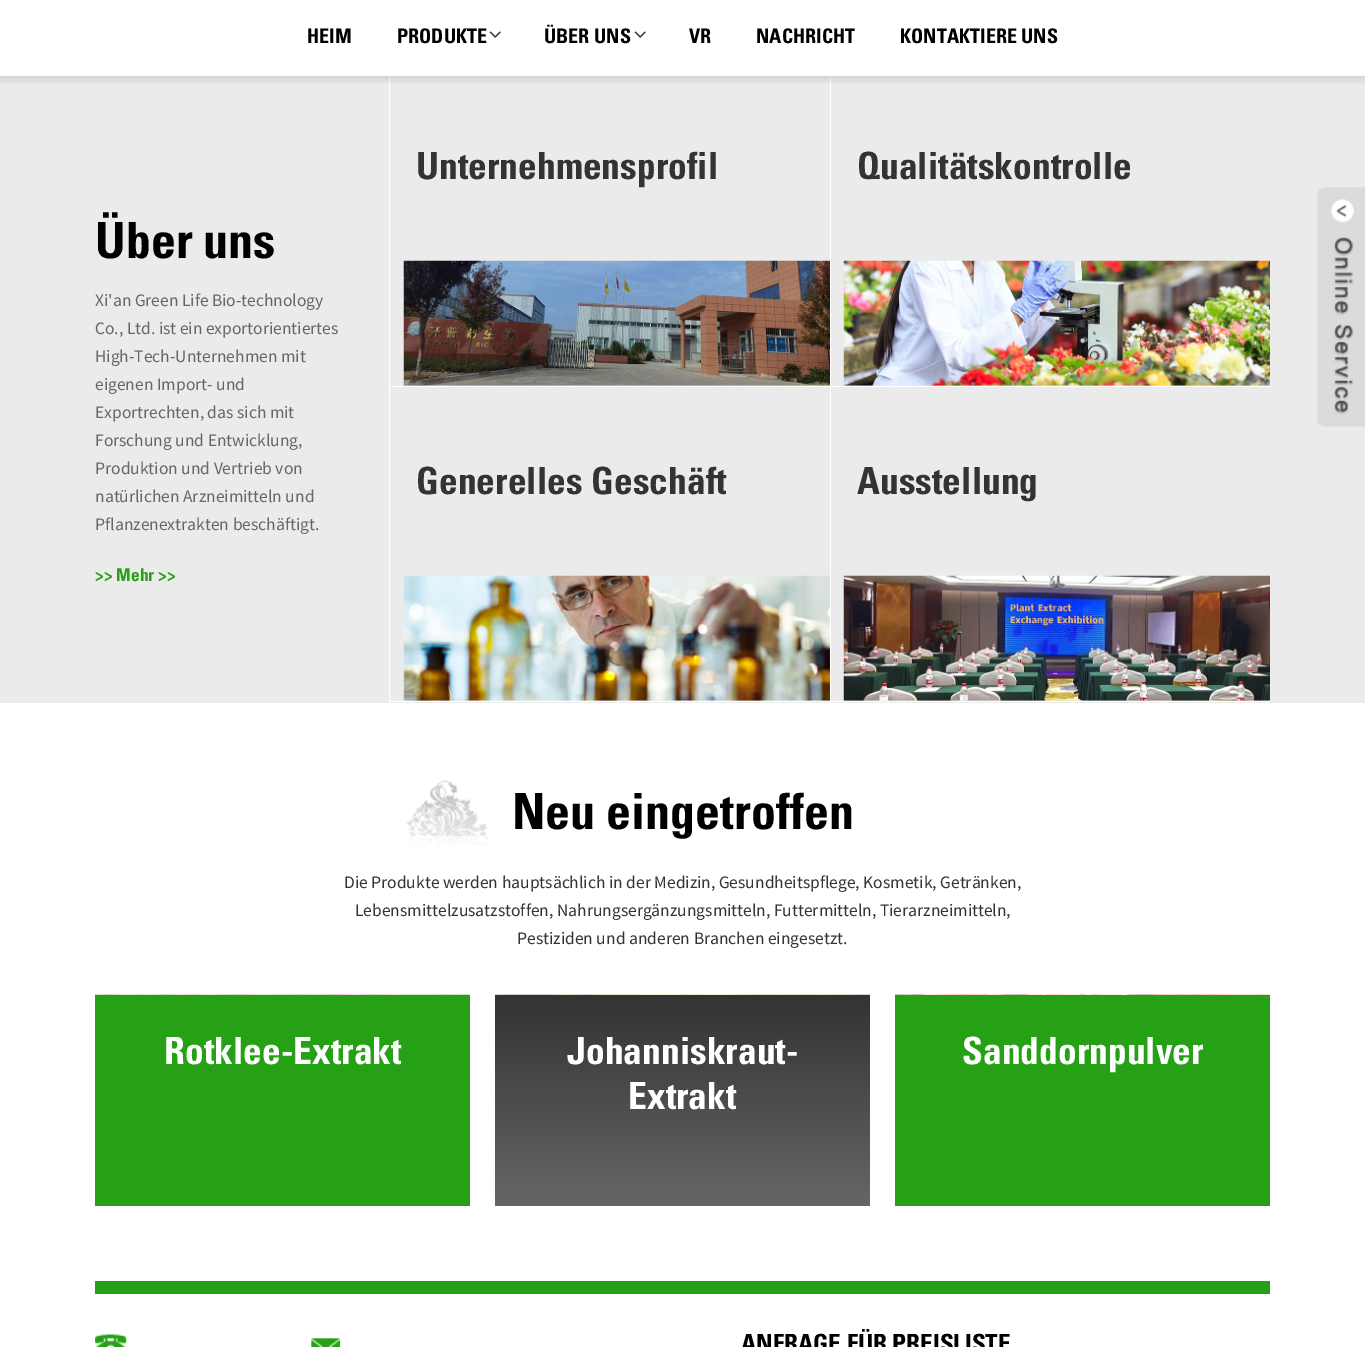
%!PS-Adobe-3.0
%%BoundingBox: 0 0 1365 1347
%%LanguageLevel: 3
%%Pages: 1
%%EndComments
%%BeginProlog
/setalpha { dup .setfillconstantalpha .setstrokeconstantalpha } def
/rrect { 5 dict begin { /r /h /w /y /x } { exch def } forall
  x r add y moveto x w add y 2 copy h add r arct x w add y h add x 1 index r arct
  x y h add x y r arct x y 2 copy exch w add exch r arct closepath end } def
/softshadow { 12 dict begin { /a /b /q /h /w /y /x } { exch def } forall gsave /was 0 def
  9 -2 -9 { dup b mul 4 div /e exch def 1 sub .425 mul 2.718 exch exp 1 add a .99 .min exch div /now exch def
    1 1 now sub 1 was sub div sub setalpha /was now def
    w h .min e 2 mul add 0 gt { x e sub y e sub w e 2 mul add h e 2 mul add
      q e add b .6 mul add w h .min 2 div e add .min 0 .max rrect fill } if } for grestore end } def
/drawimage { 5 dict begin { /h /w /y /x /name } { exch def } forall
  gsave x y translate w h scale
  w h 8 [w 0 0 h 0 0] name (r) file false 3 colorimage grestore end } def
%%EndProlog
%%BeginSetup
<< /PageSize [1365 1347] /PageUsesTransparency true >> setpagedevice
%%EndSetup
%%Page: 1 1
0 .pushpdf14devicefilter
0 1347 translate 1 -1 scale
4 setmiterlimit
1 setgray
0 0 1365 1347 rectfill
0.922 setgray
0 76 1365 627 rectfill
1 setgray
389 386 881 1 rectfill
389 73 1 315 rectfill
830 73 1 315 rectfill
gsave
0 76 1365 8 rectclip
0 setgray
0 1 1365 77 0 5 0.15 softshadow
grestore
(images/1.raw) 489 31 12 7 drawimage
(images/1.raw) 634 31 12 7 drawimage
(images/2.raw) 403 260 427 126 drawimage
(images/3.raw) 843 260 427 126 drawimage
389 701 881 1 rectfill
389 388 1 315 rectfill
(images/4.raw) 403 575 427 126 drawimage
830 388 1 315 rectfill
(images/5.raw) 843 575 427 126 drawimage
(images/6.raw) 406 780 84 66 drawimage
(images/7.raw) 95 994 375 1 drawimage
0.149 0.631 0.082 setrgbcolor
95 995 375 211 rectfill
(images/8.raw) 495 994 375 1 drawimage
gsave newpath 495 995 moveto 870 995 lineto 870 1206 lineto 495 1206 lineto closepath clip newpath
<< /ShadingType 2 /ColorSpace /DeviceRGB /Coords [683 995 683 1206] /Extend [true true] /Function << /FunctionType 2 /Domain [0 1] /C0 [0.2 0.2 0.2] /C1 [0.4 0.4 0.4] /N 1 >> >> shfill grestore
(images/9.raw) 895 994 375 1 drawimage
895 995 375 211 rectfill
(images/10.raw) 1317 187 48 240 drawimage
95 1281 1175 13 rectfill
(images/11.raw) 95 1334 32 13 drawimage
(images/12.raw) 311 1338 30 9 drawimage
/Univers-Bold [20 0 0 -20 0 0] selectfont
0 setgray
307 43 moveto (HEIM) show
397 43 moveto (PRODUKTE) show
544 43 moveto (ÜBER UNS) show
689 43 moveto (VR) show
756 43 moveto (NACHRICHT) show
900 43 moveto (KONTAKTIERE UNS) show
/Univers-Bold [50 0 0 -50 0 0] selectfont
95 258 moveto (Über uns) show
/SourceSansPro-Regular [17.5 0 0 -17.5 0 0] selectfont
0.4 setgray
95 306 moveto (Xi'an Green Life Bio-technology) show
95 334 moveto (Co., Ltd. ist ein exportorientiertes) show
95 362 moveto (High-Tech-Unternehmen mit) show
95 390 moveto (eigenen Import- und) show
95 418 moveto (Exportrechten, das sich mit) show
95 446 moveto (Forschung und Entwicklung,) show
95 474 moveto (Produktion und Vertrieb von) show
95 502 moveto (natürlichen Arzneimitteln und) show
95 530 moveto (Pflanzenextrakten beschäftigt.) show
/Univers-Bold [17.5 0 0 -17.5 0 0] selectfont
0.149 0.631 0.082 setrgbcolor
95 581 moveto (>> Mehr >>) show
/Univers-Bold [37.5 0 0 -37.5 0 0] selectfont
0.2 setgray
416 179 moveto (Unternehmensprofil) show
857 179 moveto (Qualitätskontrolle) show
416 494 moveto (Generelles Geschäft) show
857 494 moveto (Ausstellung) show
/Univers-Bold [50 0 0 -50 0 0] selectfont
0 setgray
512 829 moveto (Neu eingetroffen) show
/SourceSansPro-Regular [17.5 0 0 -17.5 0 0] selectfont
0.2 setgray
344 888 moveto (Die Produkte werden hauptsächlich in der Medizin, Gesundheitspflege, Kosmetik, Getränken,) show
355 916 moveto (Lebensmittelzusatzstoffen, Nahrungsergänzungsmitteln, Futtermitteln, Tierarzneimitteln,) show
517 944 moveto (Pestiziden und anderen Branchen eingesetzt.) show
/Univers-Bold [37.5 0 0 -37.5 0 0] selectfont
1 setgray
164 1064 moveto (Rotklee-Extrakt) show
567 1064 moveto (Johanniskraut-) show
628 1109 moveto (Extrakt) show
962 1064 moveto (Sanddornpulver) show
/Univers-Bold [25 0 0 -25 0 0] selectfont
0 setgray
741 1352 moveto (ANFRAGE FÜR PREISLISTE) show
.poppdf14devicefilter showpage
%%EOF
